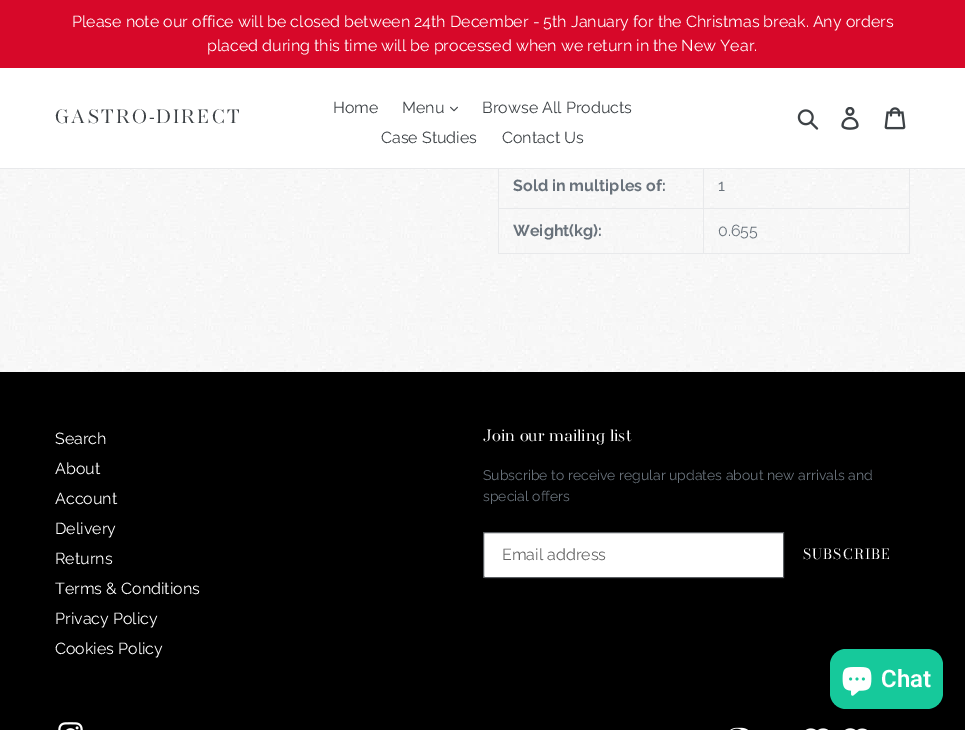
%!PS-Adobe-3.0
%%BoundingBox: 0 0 965 730
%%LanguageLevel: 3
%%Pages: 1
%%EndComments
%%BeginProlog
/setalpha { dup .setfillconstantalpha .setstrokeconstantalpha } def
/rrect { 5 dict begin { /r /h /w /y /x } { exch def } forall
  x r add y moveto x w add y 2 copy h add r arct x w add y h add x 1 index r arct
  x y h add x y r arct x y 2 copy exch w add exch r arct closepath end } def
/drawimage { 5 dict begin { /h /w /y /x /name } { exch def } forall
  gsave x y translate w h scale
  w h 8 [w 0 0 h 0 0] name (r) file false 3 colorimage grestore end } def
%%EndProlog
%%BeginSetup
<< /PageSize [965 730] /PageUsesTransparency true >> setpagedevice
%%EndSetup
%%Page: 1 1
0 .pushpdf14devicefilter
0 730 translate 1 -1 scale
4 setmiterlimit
1 setgray
0 0 965 730 rectfill
(images/1.raw) 0 169 965 203 drawimage
0.91 0.914 0.922 setrgbcolor
703 208 207 1 rectfill
909 163 1 91 rectfill
703 253 207 1 rectfill
703 208 1 46 rectfill
498 208 206 1 rectfill
703 163 1 46 rectfill
498 253 206 1 rectfill
498 163 1 91 rectfill
1 setgray
498 163 412 5 rectfill
0.843 0.031 0.161 setrgbcolor
0 0 965 68 rectfill
0.91 0.914 0.922 setrgbcolor
0 168 965 1 rectfill
(images/2.raw) 450 106 8 6 drawimage
(images/3.raw) 797 109 22 21 drawimage
(images/4.raw) 841 107 18 23 drawimage
(images/5.raw) 884 107 22 23 drawimage
0 setgray
0 372 965 358 rectfill
1 setgray
newpath 485 532 moveto 784 532 lineto 784 578 lineto 485 578 lineto 484 578 483 577 483 576 curveto 483 534 lineto 483 533 484 532 485 532 curveto closepath fill
0.85 setalpha
0.239 0.259 0.275 setrgbcolor
newpath 485 532.5 moveto 783.5 532.5 lineto 783.5 577.5 lineto 485 577.5 lineto 484 577.5 483.5 577 483.5 576 curveto 483.5 534 lineto 483.5 533 484 532.5 485 532.5 curveto closepath stroke
1 setalpha
(images/6.raw) 58 722 25 8 drawimage
(images/7.raw) 730 727 18 3 drawimage
(images/8.raw) 805 728 23 2 drawimage
(images/9.raw) 845 728 22 2 drawimage
0.086 0.788 0.608 setrgbcolor
830 649 113 60 16 rrect fill
(images/10.raw) 842 667 30 29 drawimage
/Raleway-Regular [16 0 0 -16 0 0] selectfont
1 setgray
72 27 moveto (Please note our office will be closed between 24th December - 5th January for the Christmas break. Any orders) show
207 51 moveto (placed during this time will be processed when we return in the New Year.) show
/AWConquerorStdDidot-Regular [20 0 0 -20 0 0] selectfont
0.239 0.259 0.275 setrgbcolor
55 123 moveto 2 0 (GASTRO-DIRECT) ashow
/Raleway-Regular [16 0 0 -16 0 0] selectfont
333 113 moveto (Home) show
402 113 moveto (Menu) show
482 113 moveto (Browse All Products) show
381 143 moveto (Case Studies) show
502 143 moveto (Contact Us) show
/Raleway-Bold [16 0 0 -16 0 0] selectfont
0.412 0.447 0.482 setrgbcolor
513 191 moveto (Sold in multiples of:) show
/Raleway-Regular [16 0 0 -16 0 0] selectfont
718 191 moveto (1) show
/Raleway-Bold [16 0 0 -16 0 0] selectfont
513 236 moveto (Weight\(kg\):) show
/Raleway-Regular [16 0 0 -16 0 0] selectfont
718 236 moveto (0.655) show
1 setgray
55 444 moveto (Search) show
55 474 moveto (About) show
55 504 moveto (Account) show
55 534 moveto (Delivery) show
55 564 moveto (Returns) show
55 594 moveto (Terms & Conditions) show
55 624 moveto (Privacy Policy) show
55 654 moveto (Cookies Policy) show
/AWConquerorStdDidot-Regular [17 0 0 -17 0 0] selectfont
483 441 moveto (Join our mailing list) show
/Raleway-Regular [14 0 0 -14 0 0] selectfont
0.412 0.447 0.482 setrgbcolor
483 480 moveto (Subscribe to receive regular updates about new arrivals and) show
483 501 moveto (special offers) show
/Raleway-Regular [16 0 0 -16 0 0] selectfont
0.4 setgray
502 560 moveto (Email address) show
/BodoniModa-Regular [14 0 0 -14 0 0] selectfont
1 setgray
803 559 moveto 1.1 0 (SUBSCRIBE) ashow
/Roboto-SemiBold [24 0 0 -24 0 0] selectfont
881 687 moveto (Chat) show
.poppdf14devicefilter showpage
%%EOF
